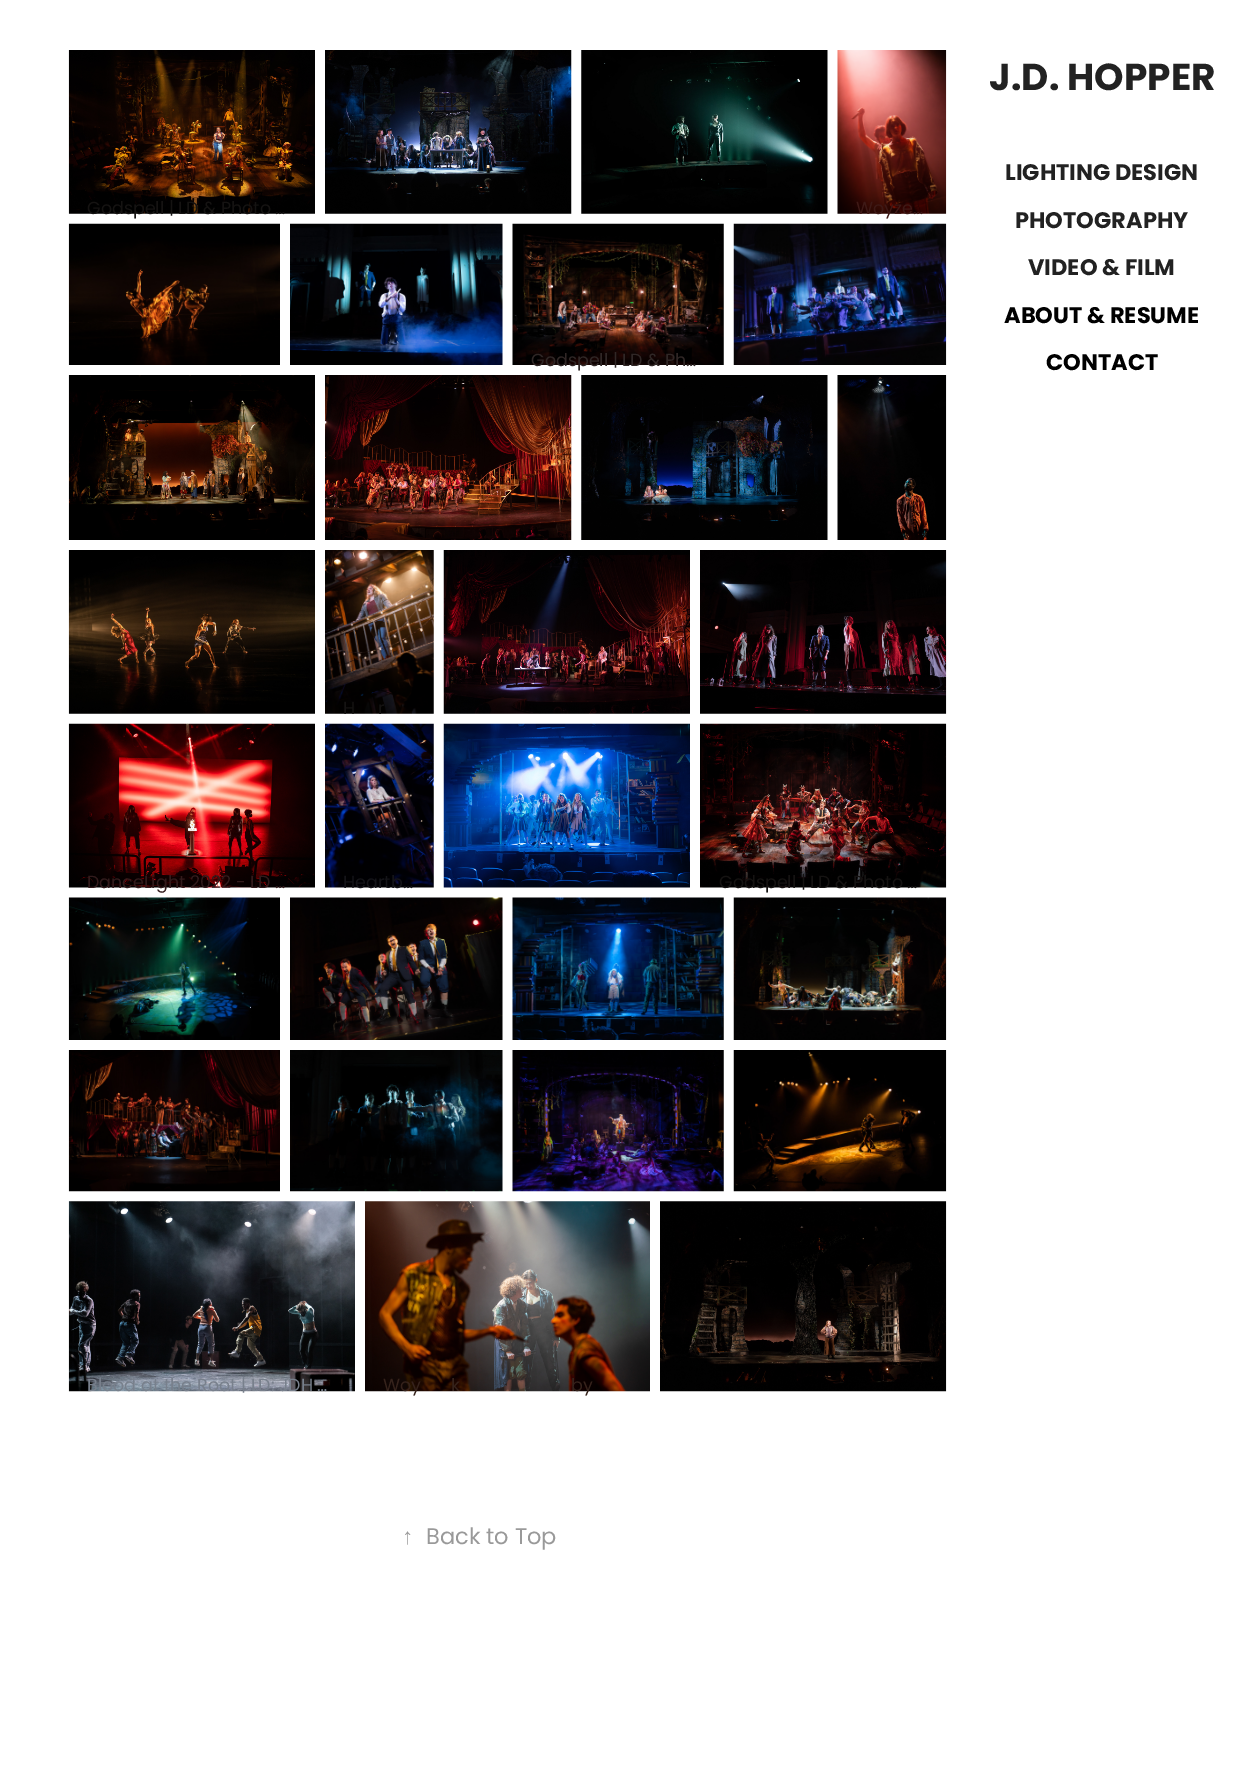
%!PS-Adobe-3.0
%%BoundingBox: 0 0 1257 1781
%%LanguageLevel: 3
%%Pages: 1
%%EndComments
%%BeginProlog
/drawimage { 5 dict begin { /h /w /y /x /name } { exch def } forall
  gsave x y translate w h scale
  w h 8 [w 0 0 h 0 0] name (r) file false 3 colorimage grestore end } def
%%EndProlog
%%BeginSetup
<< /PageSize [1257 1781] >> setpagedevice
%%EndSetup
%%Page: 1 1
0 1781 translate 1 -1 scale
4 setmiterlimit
1 setgray
0 0 1257 1781 rectfill
(images/1.raw) 68 50 247 164 drawimage
(images/2.raw) 325 50 247 164 drawimage
(images/3.raw) 581 50 247 164 drawimage
(images/4.raw) 837 50 110 164 drawimage
(images/5.raw) 68 223 212 142 drawimage
(images/6.raw) 290 223 213 142 drawimage
(images/7.raw) 512 223 212 142 drawimage
(images/8.raw) 733 223 214 142 drawimage
(images/9.raw) 68 375 247 165 drawimage
(images/10.raw) 325 375 247 165 drawimage
(images/11.raw) 581 375 247 165 drawimage
(images/12.raw) 837 375 110 165 drawimage
(images/13.raw) 68 550 247 164 drawimage
(images/14.raw) 325 550 109 164 drawimage
(images/15.raw) 443 550 247 164 drawimage
(images/16.raw) 700 550 247 164 drawimage
(images/17.raw) 68 723 247 165 drawimage
(images/18.raw) 325 723 109 165 drawimage
(images/19.raw) 443 723 247 165 drawimage
(images/20.raw) 700 723 247 165 drawimage
(images/21.raw) 68 897 212 143 drawimage
(images/22.raw) 290 897 213 143 drawimage
(images/23.raw) 512 897 212 143 drawimage
(images/24.raw) 733 897 214 143 drawimage
(images/25.raw) 68 1050 212 142 drawimage
(images/26.raw) 290 1050 213 142 drawimage
(images/27.raw) 512 1050 212 142 drawimage
(images/28.raw) 733 1050 214 142 drawimage
(images/29.raw) 68 1201 287 191 drawimage
(images/30.raw) 365 1201 285 191 drawimage
(images/31.raw) 660 1201 287 191 drawimage
/Poppins-Regular [17.5 0 0 -17.5 0 0] selectfont
0.082 0.075 0.071 setrgbcolor
87 214 moveto (Godspell | LD & Photo …) show
0.243 0.098 0.086 setrgbcolor
856 214 moveto (Woyze…) show
0.188 0.153 0.149 setrgbcolor
531 366 moveto (Godspell | LD & Ph…) show
0.082 0.075 0.071 setrgbcolor
343 714 moveto (H) show
378 714 moveto (r) show
0.196 0.106 0.11 setrgbcolor
87 888 moveto (DanceLight 2022 - LD …) show
0.078 0.078 0.094 setrgbcolor
343 888 moveto (Heartb…) show
0.082 0.075 0.071 setrgbcolor
719 888 moveto (Godspell | LD & Photo …) show
0.471 0.502 0.549 setrgbcolor
87 1391 moveto (Blood at the Root | LD: JDH …) show
0.208 0.133 0.106 setrgbcolor
383 1391 moveto (Woy) show
451 1391 moveto (k) show
571 1391 moveto (by) show
/LiberationSerif-Regular [22.5 0 0 -22.5 0 0] selectfont
0.6 setgray
402 1544 moveto (↑) show
/Poppins-Regular [22.5 0 0 -22.5 0 0] selectfont
426 1544 moveto (Back to Top) show
/Poppins-Bold [37.5 0 0 -37.5 0 0] selectfont
0.133 setgray
989 90 moveto (J.D. HOPPER) show
/Poppins-Bold [22.5 0 0 -22.5 0 0] selectfont
1005 180 moveto (LIGHTING DESIGN) show
1015 228 moveto (PHOTOGRAPHY) show
1028 275 moveto (VIDEO & FILM) show
0 setgray
1004 323 moveto (ABOUT & RESUME) show
1046 370 moveto (CONTACT) show
showpage
%%EOF
